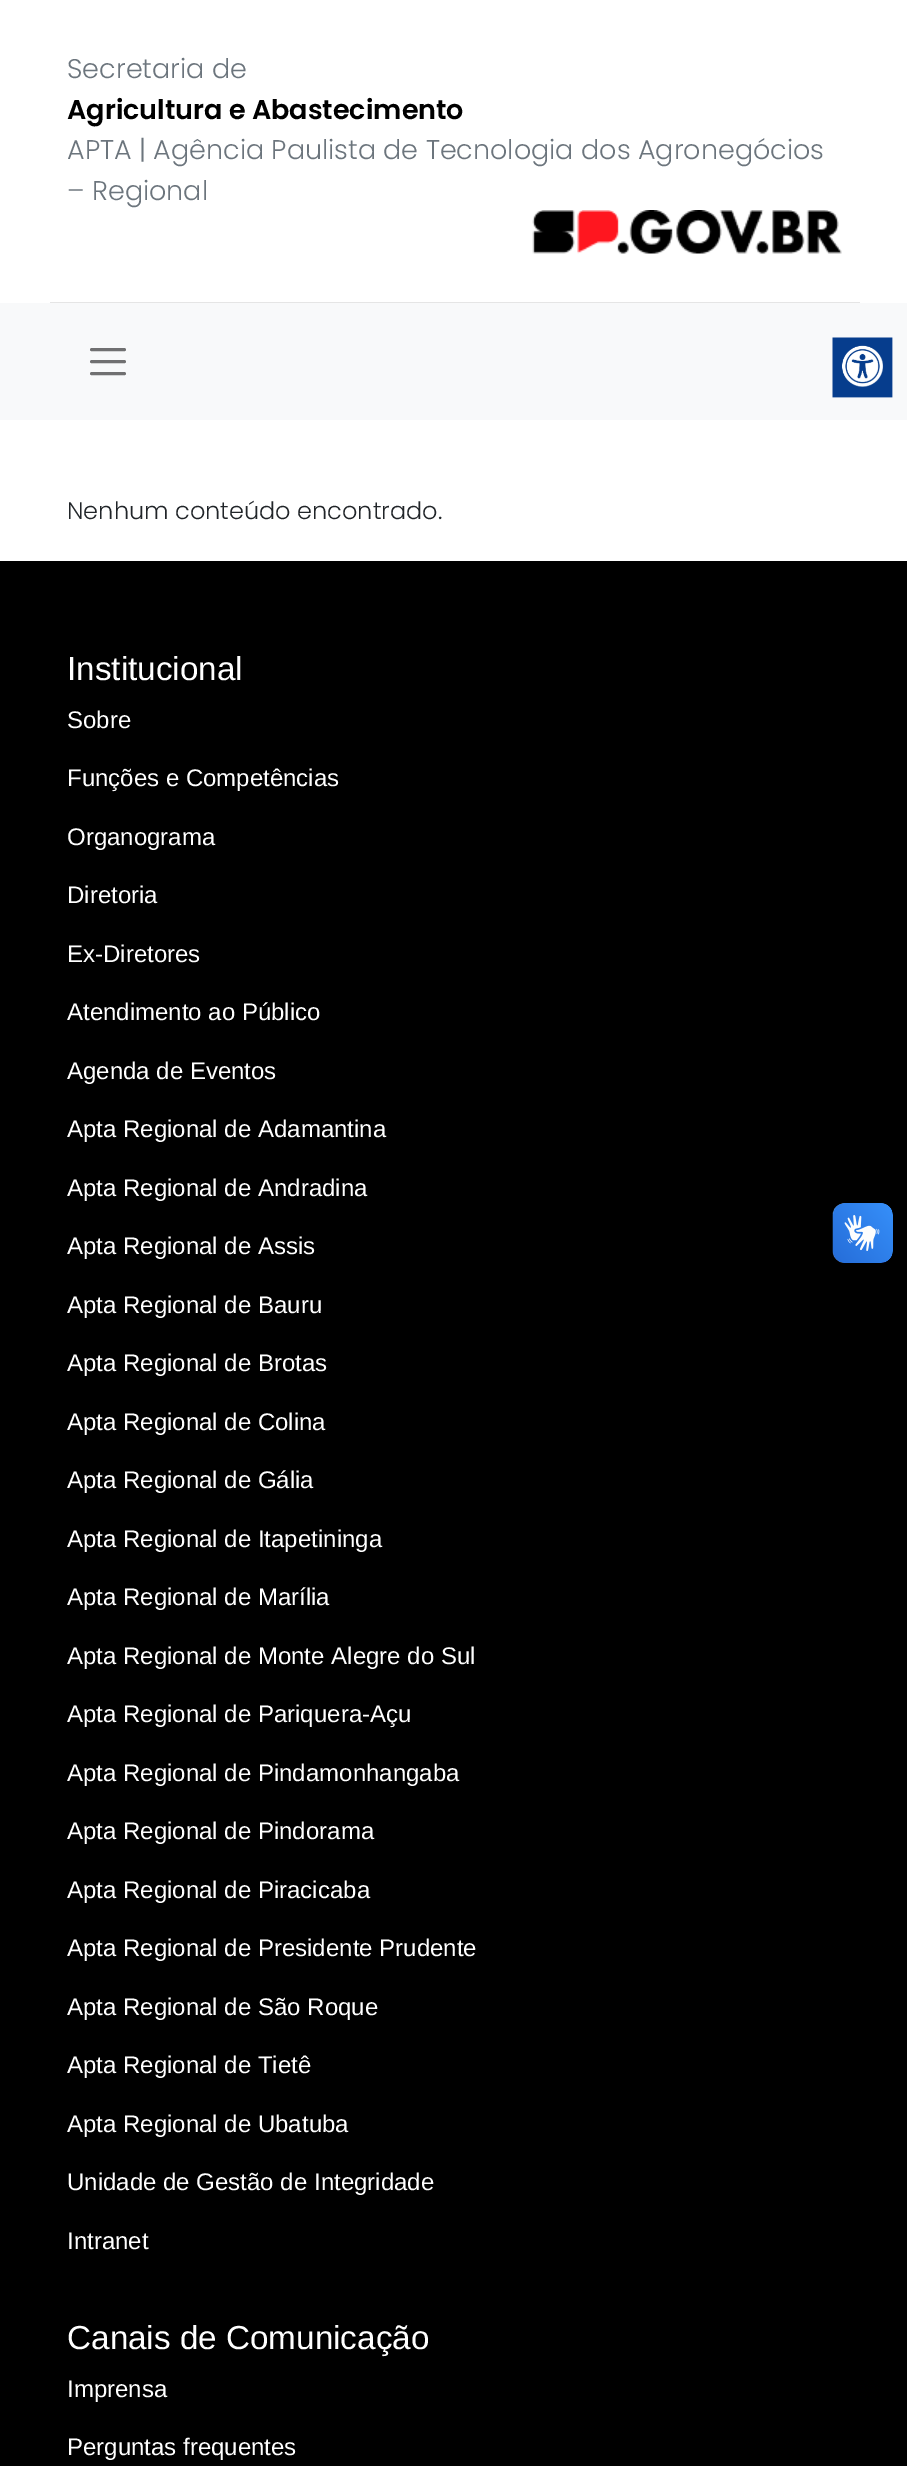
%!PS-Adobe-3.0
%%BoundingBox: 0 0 907 2466
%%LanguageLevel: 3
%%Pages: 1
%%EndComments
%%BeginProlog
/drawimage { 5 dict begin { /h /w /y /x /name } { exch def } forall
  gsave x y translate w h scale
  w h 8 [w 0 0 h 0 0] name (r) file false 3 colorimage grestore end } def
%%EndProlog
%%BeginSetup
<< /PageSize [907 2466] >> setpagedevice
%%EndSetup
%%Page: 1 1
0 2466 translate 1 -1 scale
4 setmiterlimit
1 setgray
0 0 907 2466 rectfill
0.898 setgray
50 302 810 1 rectfill
(images/1.raw) 532 210 310 44 drawimage
0.973 0.976 0.98 setrgbcolor
0 303 907 117 rectfill
0.439 0.439 0.443 setrgbcolor
3 setlinewidth
1 setlinecap
newpath 91.5 349.5 moveto 124.5 349.5 lineto 91.5 361.5 moveto 124.5 361.5 lineto 91.5 373.5 moveto 124.5 373.5 lineto stroke
(images/2.raw) 832 337 61 61 drawimage
0 setgray
0 561 907 1905 rectfill
(images/3.raw) 832 1203 61 60 drawimage
(images/4.raw) 833 1203 60 60 drawimage
/Poppins-Light [27 0 0 -27 0 0] selectfont
0.424 0.459 0.49 setrgbcolor
67 78 moveto (Secretaria de) show
/Poppins-SemiBold [27 0 0 -27 0 0] selectfont
0 setgray
67 119 moveto (Agricultura e Abastecimento) show
/Poppins-Light [27 0 0 -27 0 0] selectfont
0.424 0.459 0.49 setrgbcolor
67 159 moveto (APTA | Agência Paulista de Tecnologia dos Agronegócios) show
67 200 moveto (– Regional) show
/Poppins-Light [24 0 0 -24 0 0] selectfont
0.129 0.145 0.161 setrgbcolor
67 519 moveto (Nenhum conteúdo encontrado.) show
/LiberationSans-Regular [33.25 0 0 -33.25 0 0] selectfont
1 setgray
67 680 moveto (Institucional) show
/LiberationSans-Regular [24 0 0 -24 0 0] selectfont
67 728 moveto (Sobre) show
67 786 moveto (Funções e Competências) show
67 845 moveto (Organograma) show
67 903 moveto (Diretoria) show
67 962 moveto (Ex-Diretores) show
67 1020 moveto (Atendimento ao Público) show
67 1079 moveto (Agenda de Eventos) show
67 1137 moveto (Apta Regional de Adamantina) show
67 1196 moveto (Apta Regional de Andradina) show
67 1254 moveto (Apta Regional de Assis) show
67 1313 moveto (Apta Regional de Bauru) show
67 1371 moveto (Apta Regional de Brotas) show
67 1430 moveto (Apta Regional de Colina) show
67 1488 moveto (Apta Regional de Gália) show
67 1547 moveto (Apta Regional de Itapetininga) show
67 1605 moveto (Apta Regional de Marília) show
67 1664 moveto (Apta Regional de Monte Alegre do Sul) show
67 1722 moveto (Apta Regional de Pariquera-Açu) show
67 1781 moveto (Apta Regional de Pindamonhangaba) show
67 1839 moveto (Apta Regional de Pindorama) show
67 1898 moveto (Apta Regional de Piracicaba) show
67 1956 moveto (Apta Regional de Presidente Prudente) show
67 2015 moveto (Apta Regional de São Roque) show
67 2073 moveto (Apta Regional de Tietê) show
67 2132 moveto (Apta Regional de Ubatuba) show
67 2190 moveto (Unidade de Gestão de Integridade) show
67 2249 moveto (Intranet) show
/LiberationSans-Regular [33.25 0 0 -33.25 0 0] selectfont
67 2349 moveto (Canais de Comunicação) show
/LiberationSans-Regular [24 0 0 -24 0 0] selectfont
67 2397 moveto (Imprensa) show
67 2455 moveto (Perguntas frequentes) show
showpage
%%EOF
